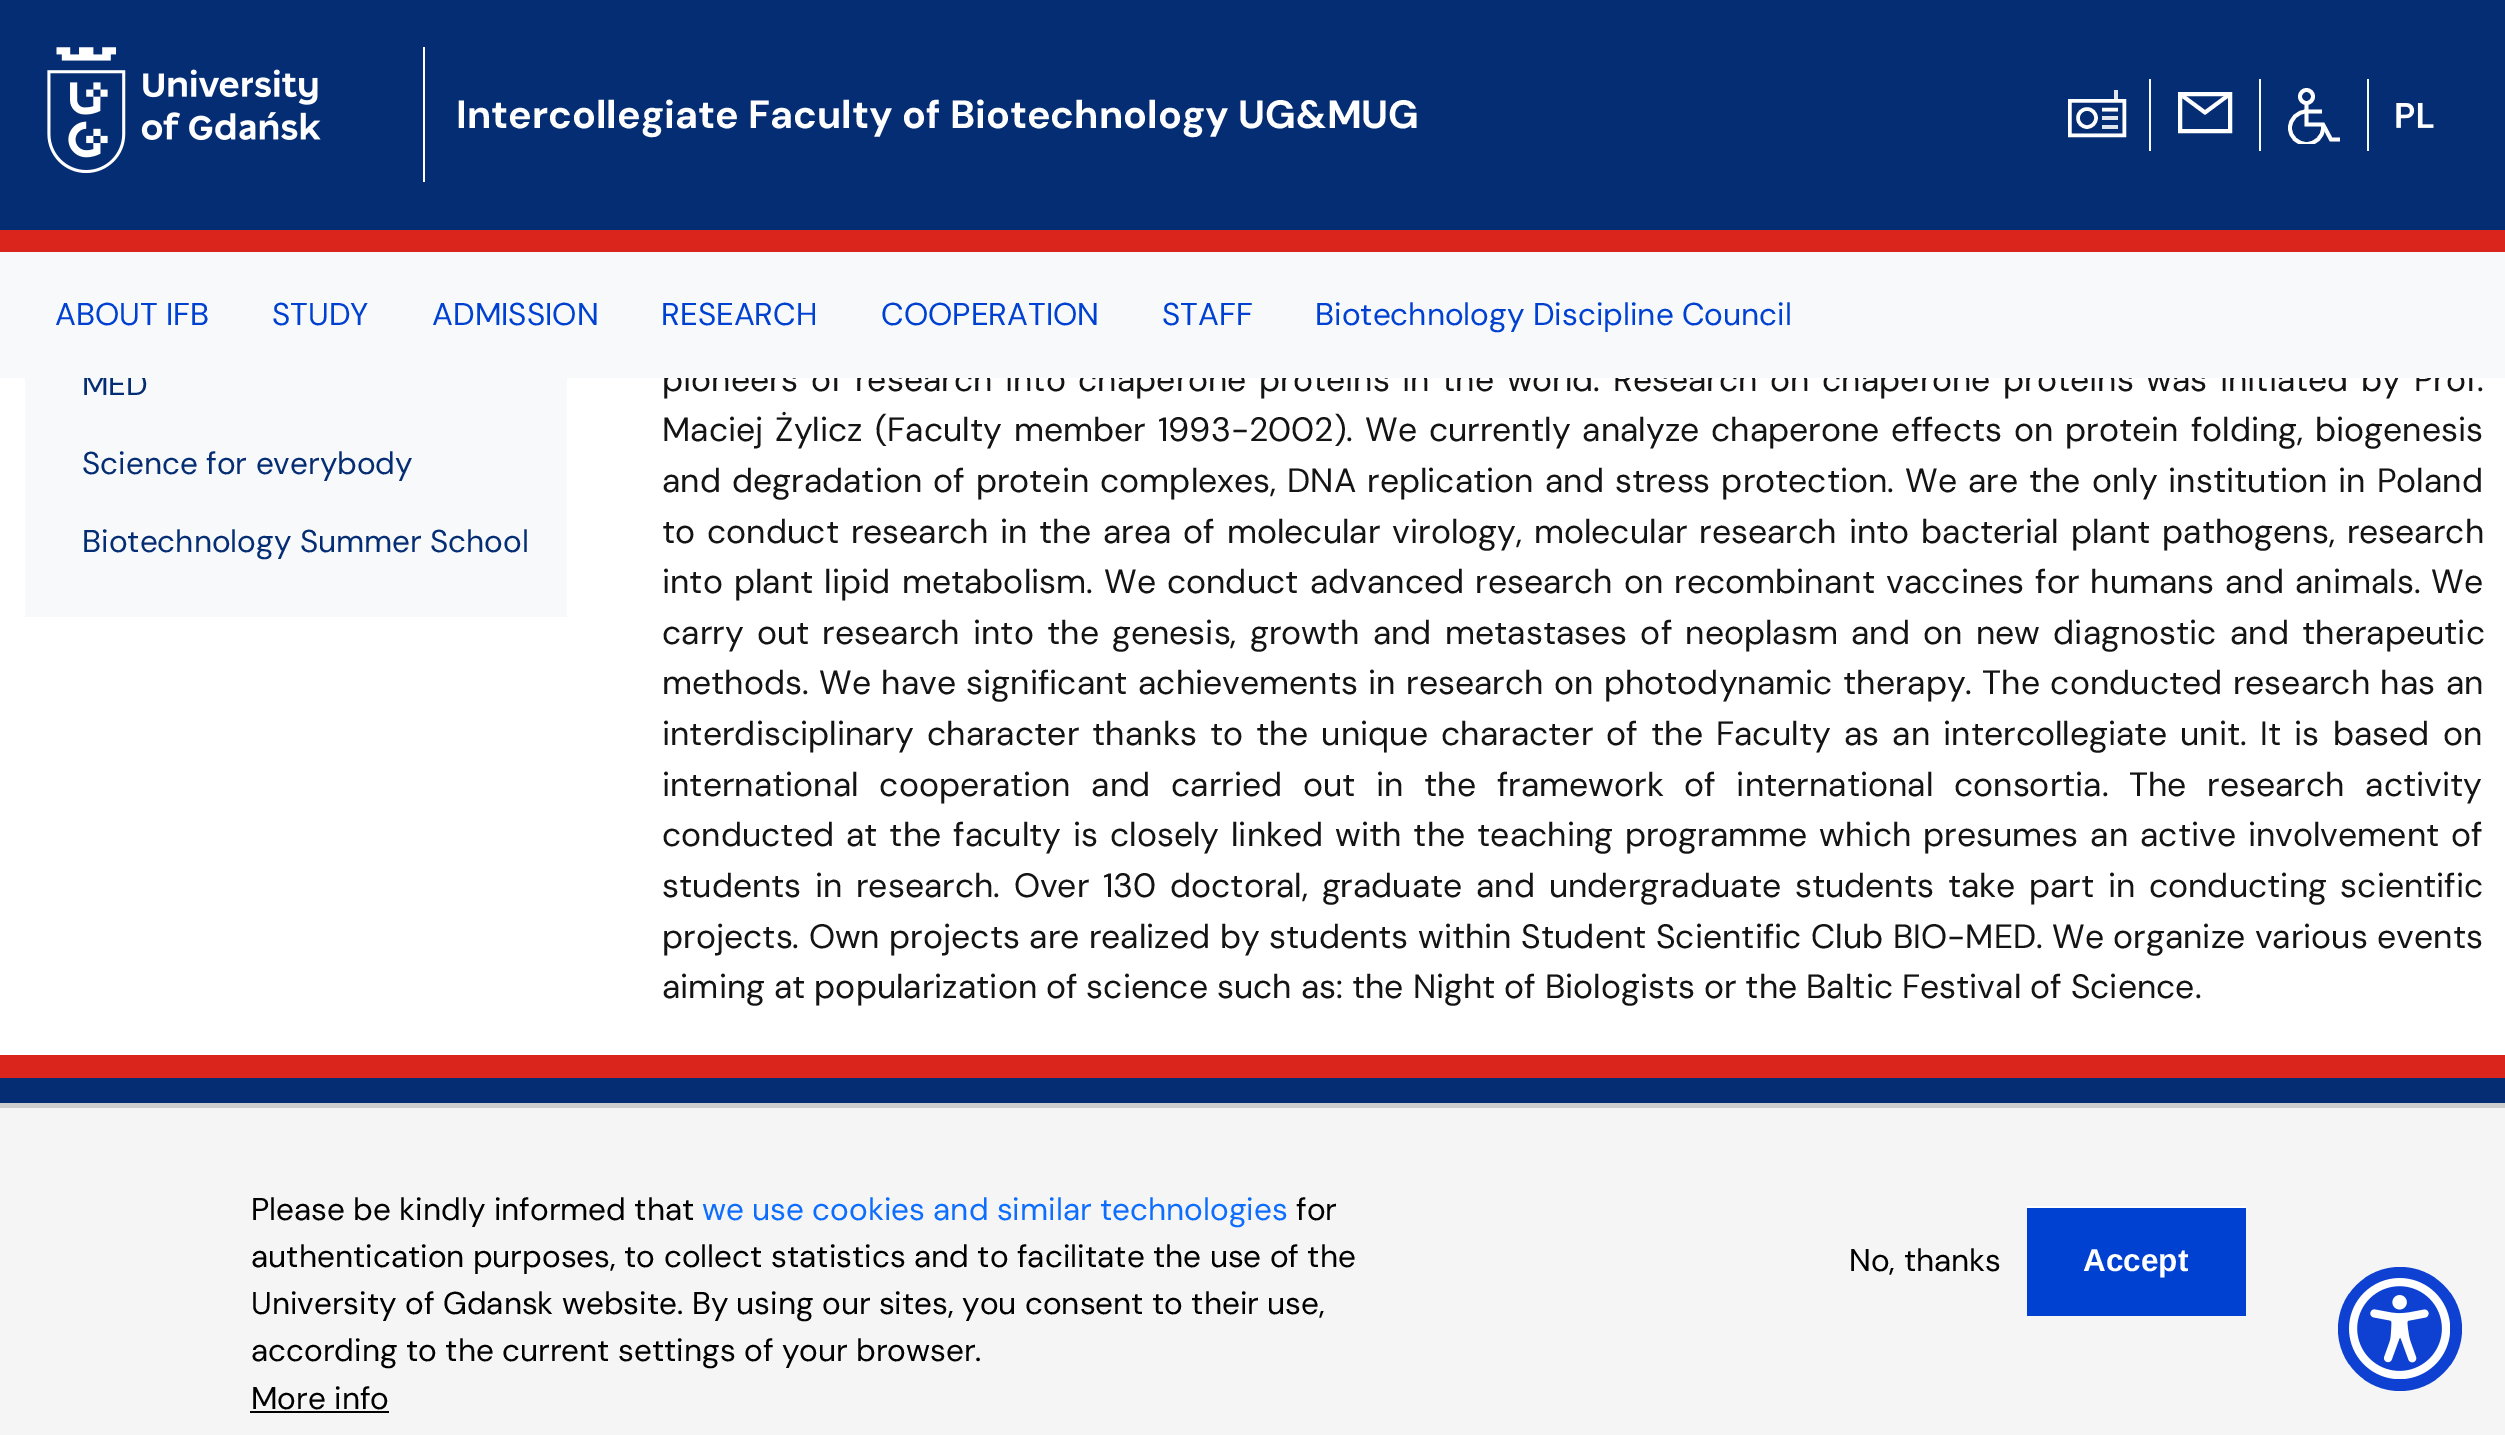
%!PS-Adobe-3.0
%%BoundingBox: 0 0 2505 1435
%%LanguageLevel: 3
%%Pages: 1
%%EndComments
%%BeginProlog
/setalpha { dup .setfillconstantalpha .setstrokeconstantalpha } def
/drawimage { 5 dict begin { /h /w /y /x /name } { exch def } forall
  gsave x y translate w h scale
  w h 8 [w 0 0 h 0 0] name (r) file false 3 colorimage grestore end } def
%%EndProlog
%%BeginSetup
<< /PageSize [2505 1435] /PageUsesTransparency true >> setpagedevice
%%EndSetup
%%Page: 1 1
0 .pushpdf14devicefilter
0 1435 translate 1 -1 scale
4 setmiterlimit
1 setgray
0 0 2505 1435 rectfill
0.02 0.176 0.451 setrgbcolor
0 0 2505 230 rectfill
1 setgray
423 47 2 135 rectfill
(images/1.raw) 47 47 274 126 drawimage
0.973 0.976 0.98 setrgbcolor
2149 79 2 72 rectfill
1 setgray
3.5 setlinewidth
2069.75 100.75 54.5 34.5 rectstroke
0.88 setalpha
2114 90 4 11 rectfill
1 setalpha
newpath 2087 118 9 0 360 arc closepath stroke
newpath 2102 109.5 moveto 2118 109.5 lineto stroke
0.878 0.898 0.933 setrgbcolor
2102 116 16 4 rectfill
2102 125 16 4 rectfill
0.973 0.976 0.98 setrgbcolor
2259 79 2 72 rectfill
1 setgray
4 setlinewidth
2180 94 50 37 rectstroke
3.8 setlinewidth
newpath 2180 94 moveto 2205 112.5 lineto 2230 94 lineto stroke
0.973 0.976 0.98 setrgbcolor
2367 79 2 72 rectfill
gsave
2288 88 52 56 rectclip
1 setgray
newpath 2306.5 111.5 moveto 2297.5 111.5 2290 119 2290 128 curveto 2290 137 2297.5 144 2306.5 144 curveto 2315.5 144 2323 137 2323 128 curveto 2323 124.5 lineto stroke
grestore
1 setgray
newpath 2306.5 103.5 moveto 2306.5 124.5 lineto 2323 124.5 lineto 2331 139.5 lineto 2340 139.5 lineto stroke
newpath 2306.5 96.5 6.5 0 360 arc closepath stroke
2 setlinecap
newpath 2306.5 111.5 moveto 2320 111.5 lineto stroke
(images/2.raw) 2396 102 38 26 drawimage
0.855 0.145 0.114 setrgbcolor
0 230 2505 22 rectfill
0.973 0.976 0.984 setrgbcolor
25 378 542 239 rectfill
0.02 0.176 0.451 setrgbcolor
0 1078 2505 25 rectfill
0.855 0.145 0.114 setrgbcolor
0 1055 2505 23 rectfill
0.961 setgray
0 1108 2505 327 rectfill
0.804 setgray
0 1103 2505 5 rectfill
0 setgray
250 1411 139 2 rectfill
0 0.255 0.824 setrgbcolor
2027 1208 219 108 rectfill
1 setgray
2027 1206 219 2 rectfill
0.055 0.255 0.824 setrgbcolor
newpath 2400 1329 62 0 360 arc closepath fill
(images/3.raw) 2349 1278 101 101 drawimage
/DMSans-Bold [39.4 0 0 -39.4 0 0] selectfont
1 setgray
456 128 moveto (Intercollegiate Faculty of Biotechnology UG&MUG) show
/DMSans-Regular [31.5 0 0 -31.5 0 0] selectfont
0.02 0.176 0.451 setrgbcolor
82 395 moveto (MED) show
82 474 moveto (Science for everybody) show
82 552 moveto (Biotechnology Summer School) show
/DMSans-Regular [33.75 0 0 -33.75 0 0] selectfont
0.078 setgray
662 391 moveto 3.6 0 32 (pioneers of research into chaperone proteins in the world. Research on chaperone proteins was initiated by Prof.) widthshow
0.973 0.976 0.98 setrgbcolor
0 252 2505 126 rectfill
/DMSans-Regular [31.5 0 0 -31.5 0 0] selectfont
0 0.255 0.824 setrgbcolor
1315 325 moveto (Biotechnology Discipline Council) show
1162 325 moveto (STAFF) show
881 325 moveto (COOPERATION) show
661 325 moveto (RESEARCH) show
432 325 moveto (ADMISSION) show
272 325 moveto (STUDY) show
55 325 moveto (ABOUT IFB) show
/DMSans-Regular [33.75 0 0 -33.75 0 0] selectfont
0.078 setgray
662 441 moveto 2.9 0 32 (Maciej Żylicz \(Faculty member 1993-2002\). We currently analyze chaperone effects on protein folding, biogenesis) widthshow
662 492 moveto 2 0 32 (and degradation of protein complexes, DNA replication and stress protection. We are the only institution in Poland) widthshow
662 543 moveto 2.9 0 32 (to conduct research in the area of molecular virology, molecular research into bacterial plant pathogens, research) widthshow
662 593 moveto 2.1 0 32 (into plant lipid metabolism. We conduct advanced research on recombinant vaccines for humans and animals. We) widthshow
662 644 moveto 4.25 0 32 (carry out research into the genesis, growth and metastases of neoplasm and on new diagnostic and therapeutic) widthshow
662 694 moveto 1.4 0 32 (methods. We have significant achievements in research on photodynamic therapy. The conducted research has an) widthshow
662 745 moveto 4.25 0 32 (interdisciplinary character thanks to the unique character of the Faculty as an intercollegiate unit. It is based on) widthshow
662 796 moveto 11.75 0 32 (international cooperation and carried out in the framework of international consortia. The research activity) widthshow
662 846 moveto 2.9 0 32 (conducted at the faculty is closely linked with the teaching programme which presumes an active involvement of) widthshow
662 897 moveto 4.6 0 32 (students in research. Over 130 doctoral, graduate and undergraduate students take part in conducting scientific) widthshow
662 948 moveto 0.5 0 32 (projects. Own projects are realized by students within Student Scientific Club BIO-MED. We organize various events) widthshow
662 998 moveto (aiming at popularization of science such as: the Night of Biologists or the Baltic Festival of Science.) show
/DMSans-Regular [31.5 0 0 -31.5 0 0] selectfont
0 setgray
251 1220 moveto (Please be kindly informed that) show
0.051 0.431 0.992 setrgbcolor
702 1220 moveto (we use cookies and similar technologies) show
0 setgray
1296 1220 moveto (for) show
251 1267 moveto (authentication purposes, to collect statistics and to facilitate the use of the) show
251 1314 moveto (University of Gdansk website. By using our sites, you consent to their use,) show
251 1361 moveto (according to the current settings of your browser.) show
251 1409 moveto (More info) show
1849 1271 moveto (No, thanks) show
/LiberationSans-Bold [31.5 0 0 -31.5 0 0] selectfont
1 setgray
2083 1271 moveto (Accept) show
.poppdf14devicefilter showpage
%%EOF
